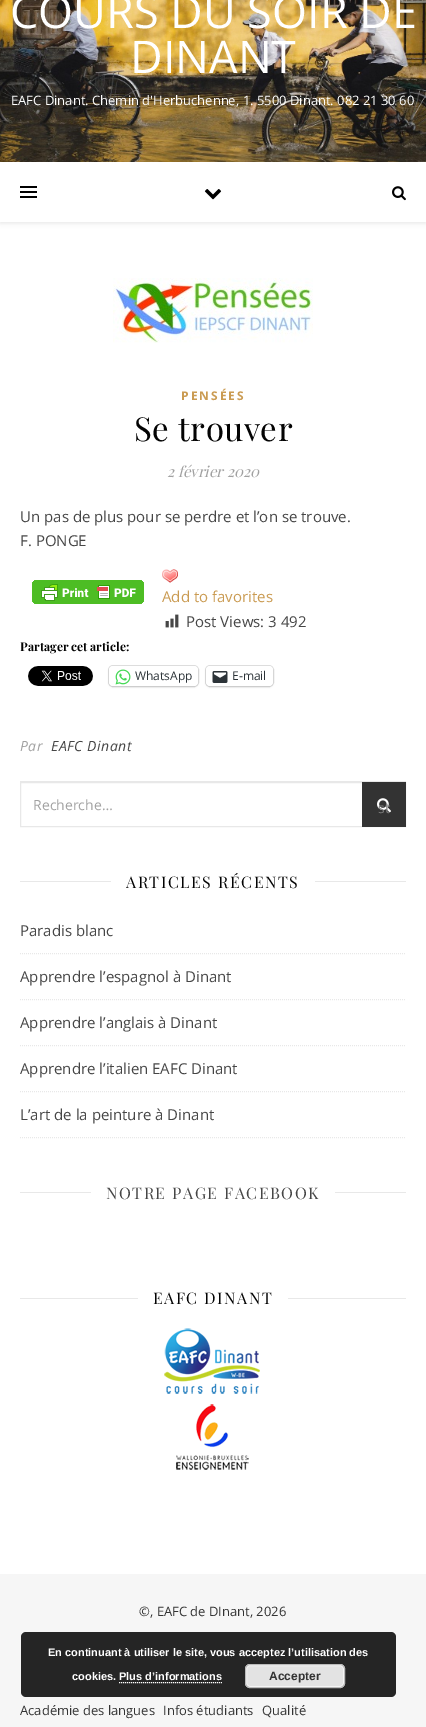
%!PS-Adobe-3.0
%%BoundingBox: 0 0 426 1727
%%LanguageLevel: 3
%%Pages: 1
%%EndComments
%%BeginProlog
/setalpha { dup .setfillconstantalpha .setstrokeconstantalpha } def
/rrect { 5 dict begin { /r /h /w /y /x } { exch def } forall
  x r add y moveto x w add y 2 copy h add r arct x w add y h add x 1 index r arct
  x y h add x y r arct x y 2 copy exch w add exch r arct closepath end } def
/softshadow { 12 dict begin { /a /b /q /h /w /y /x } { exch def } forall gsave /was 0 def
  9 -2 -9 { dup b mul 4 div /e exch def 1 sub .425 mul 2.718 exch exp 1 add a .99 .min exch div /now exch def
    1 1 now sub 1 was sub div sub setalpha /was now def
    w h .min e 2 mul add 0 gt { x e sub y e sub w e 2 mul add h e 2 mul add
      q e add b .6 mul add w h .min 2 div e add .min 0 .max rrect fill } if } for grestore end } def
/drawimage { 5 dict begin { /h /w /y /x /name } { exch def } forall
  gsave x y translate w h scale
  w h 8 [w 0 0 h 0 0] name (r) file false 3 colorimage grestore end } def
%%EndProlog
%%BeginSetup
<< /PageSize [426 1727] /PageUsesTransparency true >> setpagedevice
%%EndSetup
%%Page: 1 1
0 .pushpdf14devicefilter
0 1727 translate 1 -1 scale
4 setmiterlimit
1 setgray
0 0 426 1727 rectfill
(images/1.raw) 0 0 426 162 drawimage
gsave
newpath 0 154 moveto 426 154 lineto 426 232 lineto 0 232 lineto closepath 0 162 moveto 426 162 lineto 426 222 lineto 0 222 lineto closepath eoclip newpath
0 setgray
0 163 426 60 0 2.5 0.1 softshadow
grestore
0 setgray
20 186 17 2 rectfill
20 191 17 2 rectfill
20 196 17 2 rectfill
(images/2.raw) 204 189 18 11 drawimage
(images/3.raw) 392 186 14 15 drawimage
(images/4.raw) 113 278 200 65 drawimage
(images/5.raw) 32 580 112 24 drawimage
(images/6.raw) 162 569 16 14 drawimage
(images/7.raw) 165 614 14 14 drawimage
(images/8.raw) 28 666 65 20 drawimage
0.878 setgray
108.5 665.5 90 21 4.5 rrect stroke
0 setgray
109 667 89 20 4 1 0.12 softshadow
1 setgray
109 666 89 20 4 rrect fill
(images/9.raw) 115 669 16 16 drawimage
0.878 setgray
205.5 665.5 68 21 4.5 rrect stroke
0 setgray
206 667 67 20 4 1 0.12 softshadow
1 setgray
206 666 67 20 4 rrect fill
(images/10.raw) 212 671 16 12 drawimage
0.91 setgray
20 781 386 1 rectfill
20.5 782.5 385 44 rectstroke
0.2 setgray
362 782 44 45 rectfill
(images/11.raw) 377 798 14 15 drawimage
0.91 setgray
20 881 91 1 rectfill
315 881 91 1 rectfill
[1 1] 0 setdash
newpath 20 953.5 moveto 406 953.5 lineto stroke
newpath 20 999.5 moveto 406 999.5 lineto stroke
newpath 20 1045.5 moveto 406 1045.5 lineto stroke
newpath 20 1091.5 moveto 406 1091.5 lineto stroke
newpath 20 1137.5 moveto 406 1137.5 lineto stroke
20 1192 71 1 rectfill
335 1192 71 1 rectfill
20 1298 118 1 rectfill
288 1298 118 1 rectfill
(images/12.raw) 164 1328 96 142 drawimage
0.965 setgray
0 1574 426 153 rectfill
0.85 setalpha
0 setgray
21 1632 375 65 5 rrect fill
1 setalpha
0.89 setgray
245 1664 100 24 5 rrect fill
0.965 setgray
[] 0 setdash
246.5 1665.5 97 21 3.5 rrect stroke
0.733 setgray
245.5 1664.5 99 23 4.5 rrect stroke
1 setgray
[1 1] 0 setdash
newpath 119 1682.5 moveto 222 1682.5 lineto stroke
/OpenSans-Regular [45 0 0 -45 0 0] selectfont
10 28 moveto (COURS DU SOIR DE) show
130 73 moveto (DINANT) show
/OpenSans-Regular [13 0 0 -13 0 0] selectfont
11 105 moveto (EAFC Dinant. Chemin d'Herbuchenne, 1. 5500 Dinant. 082 21 30 60) show
/OpenSans-Bold [12 0 0 -12 0 0] selectfont
0.792 0.608 0.322 setrgbcolor
181 400 moveto 2 0 (PENSÉES) ashow
/PlayfairDisplay-Regular [33 0 0 -33 0 0] selectfont
0.012 setgray
134 441 moveto 0.5 0 (Se trouver) ashow
/PlayfairDisplay-Italic [15 0 0 -15 0 0] selectfont
0.631 setgray
167 477 moveto (2 février 2020) show
/OpenSans-Regular [15 0 0 -15 0 0] selectfont
0.275 setgray
20 522 moveto (Un pas de plus pour se perdre et l’on se trouve.) show
20 546 moveto (F. PONGE) show
0.792 0.608 0.322 setrgbcolor
162 602 moveto (Add to favorites) show
0.275 setgray
186 627 moveto (Post Views: 3 492) show
/PlayfairDisplay-Bold [12 0 0 -12 0 0] selectfont
0.012 setgray
20 651 moveto (Partager cet article:) show
/OpenSans-Regular [12 0 0 -12 0 0] selectfont
0.173 0.2 0.22 setrgbcolor
135 680 moveto (WhatsApp) show
232 680 moveto (E-mail) show
/OpenSans-Italic [14 0 0 -14 0 0] selectfont
0.631 setgray
20 751 moveto 0.5 0 (Par) ashow
0.275 setgray
51 751 moveto 0.5 0 (EAFC Dinant) ashow
/OpenSans-Regular [14 0 0 -14 0 0] selectfont
0.631 setgray
33 810 moveto (Recherche…) show
0.49 setgray
378 813 moveto (st) show
/PlayfairDisplay-Regular [16 0 0 -16 0 0] selectfont
0.012 setgray
126 888 moveto 1.5 0 (ARTICLES RÉCENTS) ashow
/OpenSans-Regular [15 0 0 -15 0 0] selectfont
0.275 setgray
20 936 moveto (Paradis blanc) show
20 982 moveto (Apprendre l’espagnol à Dinant) show
20 1028 moveto (Apprendre l’anglais à Dinant) show
20 1074 moveto (Apprendre l’italien EAFC Dinant) show
20 1120 moveto (L’art de la peinture à Dinant) show
/PlayfairDisplay-Regular [16 0 0 -16 0 0] selectfont
106 1199 moveto 1.5 0 (NOTRE PAGE FACEBOOK) ashow
0.012 setgray
153 1304 moveto 1.5 0 (EAFC DINANT) ashow
/OpenSans-Regular [13 0 0 -13 0 0] selectfont
0.2 setgray
139 1616 moveto (©, EAFC de DInant, 2026) show
20 1715 moveto (Académie des langues) show
163 1715 moveto (Infos étudiants) show
262 1715 moveto (Qualité) show
/LiberationSans-Bold [11 0 0 -11 0 0] selectfont
1 setgray
48 1656 moveto (En continuant à utiliser le site, vous acceptez l’utilisation des) show
72 1680 moveto (cookies. Plus d’informations) show
/LiberationSans-Bold [12 0 0 -12 0 0] selectfont
0.2 setgray
269 1680 moveto (Accepter) show
.poppdf14devicefilter showpage
%%EOF
